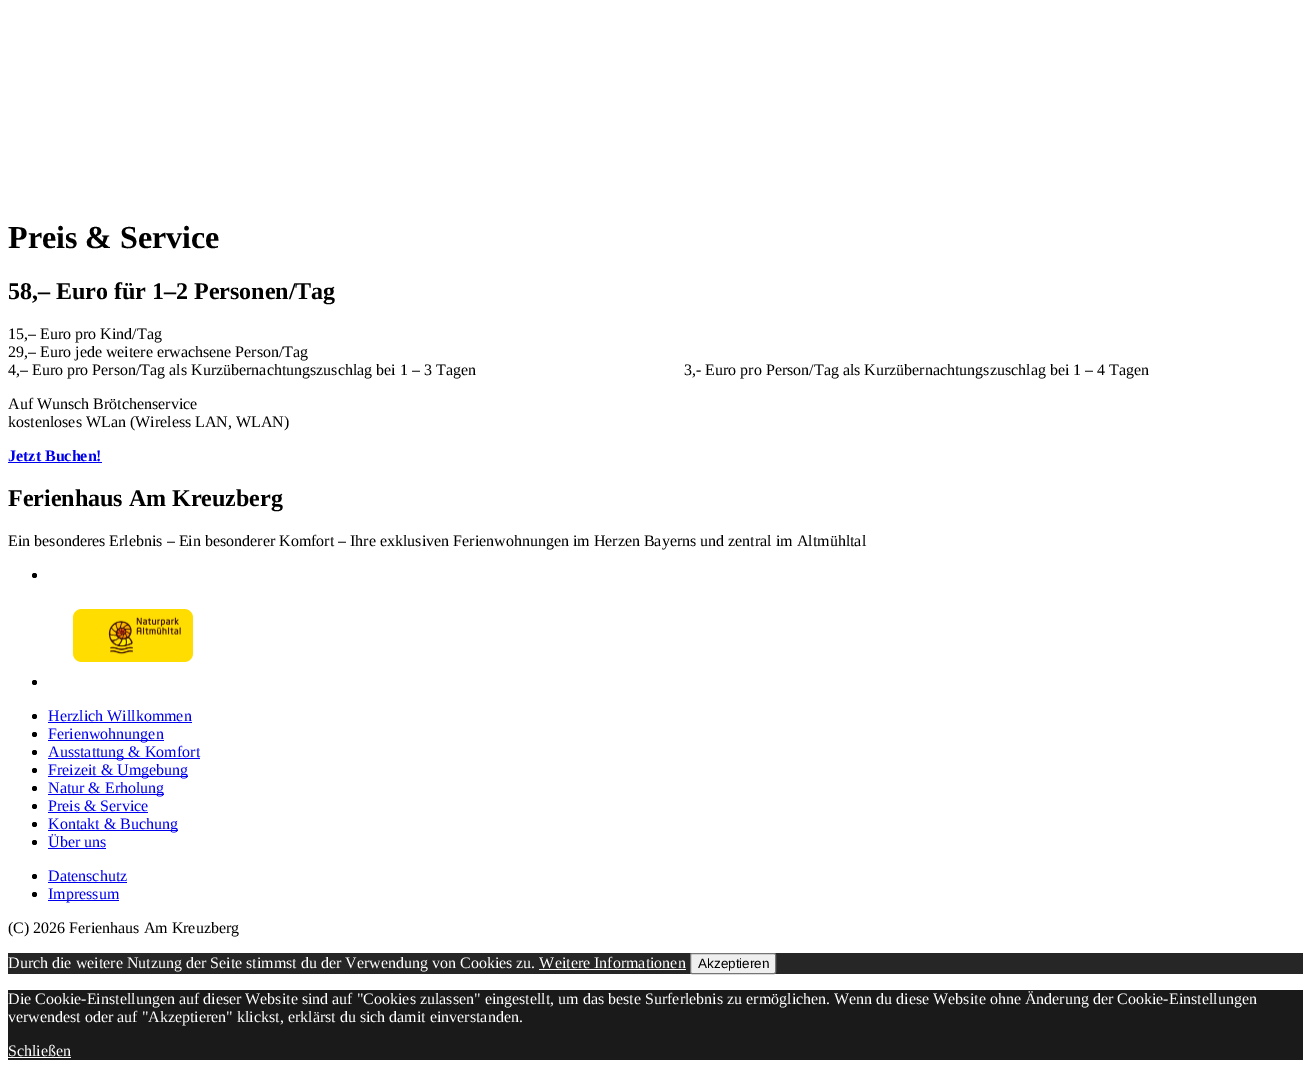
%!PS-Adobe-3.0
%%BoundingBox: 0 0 1311 1076
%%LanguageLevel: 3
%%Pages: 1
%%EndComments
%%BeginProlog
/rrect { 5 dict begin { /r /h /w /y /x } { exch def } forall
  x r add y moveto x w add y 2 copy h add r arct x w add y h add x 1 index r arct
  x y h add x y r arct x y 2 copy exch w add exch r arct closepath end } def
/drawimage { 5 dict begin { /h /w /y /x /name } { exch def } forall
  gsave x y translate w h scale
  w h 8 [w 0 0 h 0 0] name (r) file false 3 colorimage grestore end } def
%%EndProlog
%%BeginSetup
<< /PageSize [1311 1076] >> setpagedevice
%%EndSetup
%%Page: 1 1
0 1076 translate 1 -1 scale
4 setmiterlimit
1 setgray
0 0 1311 1076 rectfill
0 0 0.933 setrgbcolor
8 462 94 1 rectfill
0 setgray
newpath 34.5 575.5 2.5 0 360 arc closepath fill
(images/1.raw) 73 609 120 53 drawimage
newpath 34.5 682.5 2.5 0 360 arc closepath fill
newpath 34.5 716.5 2.5 0 360 arc closepath fill
0 0 0.933 setrgbcolor
48 722 144 1 rectfill
0 setgray
newpath 34.5 734.5 2.5 0 360 arc closepath fill
0 0 0.933 setrgbcolor
48 740 116 1 rectfill
0 setgray
newpath 34.5 752.5 2.5 0 360 arc closepath fill
0 0 0.933 setrgbcolor
48 758 152 1 rectfill
0 setgray
newpath 34.5 770.5 2.5 0 360 arc closepath fill
0 0 0.933 setrgbcolor
48 776 140 1 rectfill
0 setgray
newpath 34.5 788.5 2.5 0 360 arc closepath fill
0 0 0.933 setrgbcolor
48 794 116 1 rectfill
0 setgray
newpath 34.5 806.5 2.5 0 360 arc closepath fill
0 0 0.933 setrgbcolor
48 812 100 1 rectfill
0 setgray
newpath 34.5 824.5 2.5 0 360 arc closepath fill
0 0 0.933 setrgbcolor
48 830 130 1 rectfill
0 setgray
newpath 34.5 842.5 2.5 0 360 arc closepath fill
0 0 0.933 setrgbcolor
48 848 58 1 rectfill
0 setgray
newpath 34.5 876.5 2.5 0 360 arc closepath fill
0 0 0.933 setrgbcolor
48 882 79 1 rectfill
0 setgray
newpath 34.5 894.5 2.5 0 360 arc closepath fill
0 0 0.933 setrgbcolor
48 900 71 1 rectfill
0.149 setgray
8 953 1295 21 rectfill
0.937 setgray
690.5 953.5 85 20 1.5 rrect gsave fill grestore
0.463 setgray
stroke
1 setgray
539 969 147 1 rectfill
0.102 setgray
8 990 1295 70 rectfill
1 setgray
8 1057 63 1 rectfill
/LiberationSerif-Bold [32 0 0 -32 0 0] selectfont
0 setgray
8 248 moveto (Preis & Service) show
/LiberationSerif-Bold [24 0 0 -24 0 0] selectfont
8 299 moveto (58,– Euro für 1–2 Personen/Tag) show
/LiberationSerif-Regular [16 0 0 -16 0 0] selectfont
8 339 moveto (15,– Euro pro Kind/Tag) show
8 357 moveto (29,– Euro jede weitere erwachsene Person/Tag) show
8 375 moveto (4,– Euro pro Person/Tag als Kurzübernachtungszuschlag bei 1 – 3 Tagen) show
684 375 moveto (3,- Euro pro Person/Tag als Kurzübernachtungszuschlag bei 1 – 4 Tagen) show
8 409 moveto (Auf Wunsch Brötchenservice) show
8 427 moveto (kostenloses WLan \(Wireless LAN, WLAN\)) show
/LiberationSerif-Bold [16 0 0 -16 0 0] selectfont
0 0 0.933 setrgbcolor
8 461 moveto (Jetzt Buchen!) show
/LiberationSerif-Bold [24 0 0 -24 0 0] selectfont
0 setgray
8 506 moveto (Ferienhaus Am Kreuzberg) show
/LiberationSerif-Regular [16 0 0 -16 0 0] selectfont
8 546 moveto (Ein besonderes Erlebnis – Ein besonderer Komfort – Ihre exklusiven Ferienwohnungen im Herzen Bayerns und zentral im Altmühltal) show
0 0 0.933 setrgbcolor
48 721 moveto (Herzlich Willkommen) show
48 739 moveto (Ferienwohnungen) show
48 757 moveto (Ausstattung & Komfort) show
48 775 moveto (Freizeit & Umgebung) show
48 793 moveto (Natur & Erholung) show
48 811 moveto (Preis & Service) show
48 829 moveto (Kontakt & Buchung) show
48 847 moveto (Über uns) show
48 881 moveto (Datenschutz) show
48 899 moveto (Impressum) show
0 setgray
8 933 moveto (\(C\) 2026 Ferienhaus Am Kreuzberg) show
1 setgray
8 968 moveto (Durch die weitere Nutzung der Seite stimmst du der Verwendung von Cookies zu. Weitere Informationen) show
/LiberationSans-Regular [13.5 0 0 -13.5 0 0] selectfont
0 setgray
698 968 moveto (Akzeptieren) show
/LiberationSerif-Regular [16 0 0 -16 0 0] selectfont
1 setgray
8 1004 moveto (Die Cookie-Einstellungen auf dieser Website sind auf "Cookies zulassen" eingestellt, um das beste Surferlebnis zu ermöglichen. Wenn du diese Website ohne Änderung der Cookie-Einstellungen) show
8 1022 moveto (verwendest oder auf "Akzeptieren" klickst, erklärst du sich damit einverstanden.) show
8 1056 moveto (Schließen) show
showpage
%%EOF
